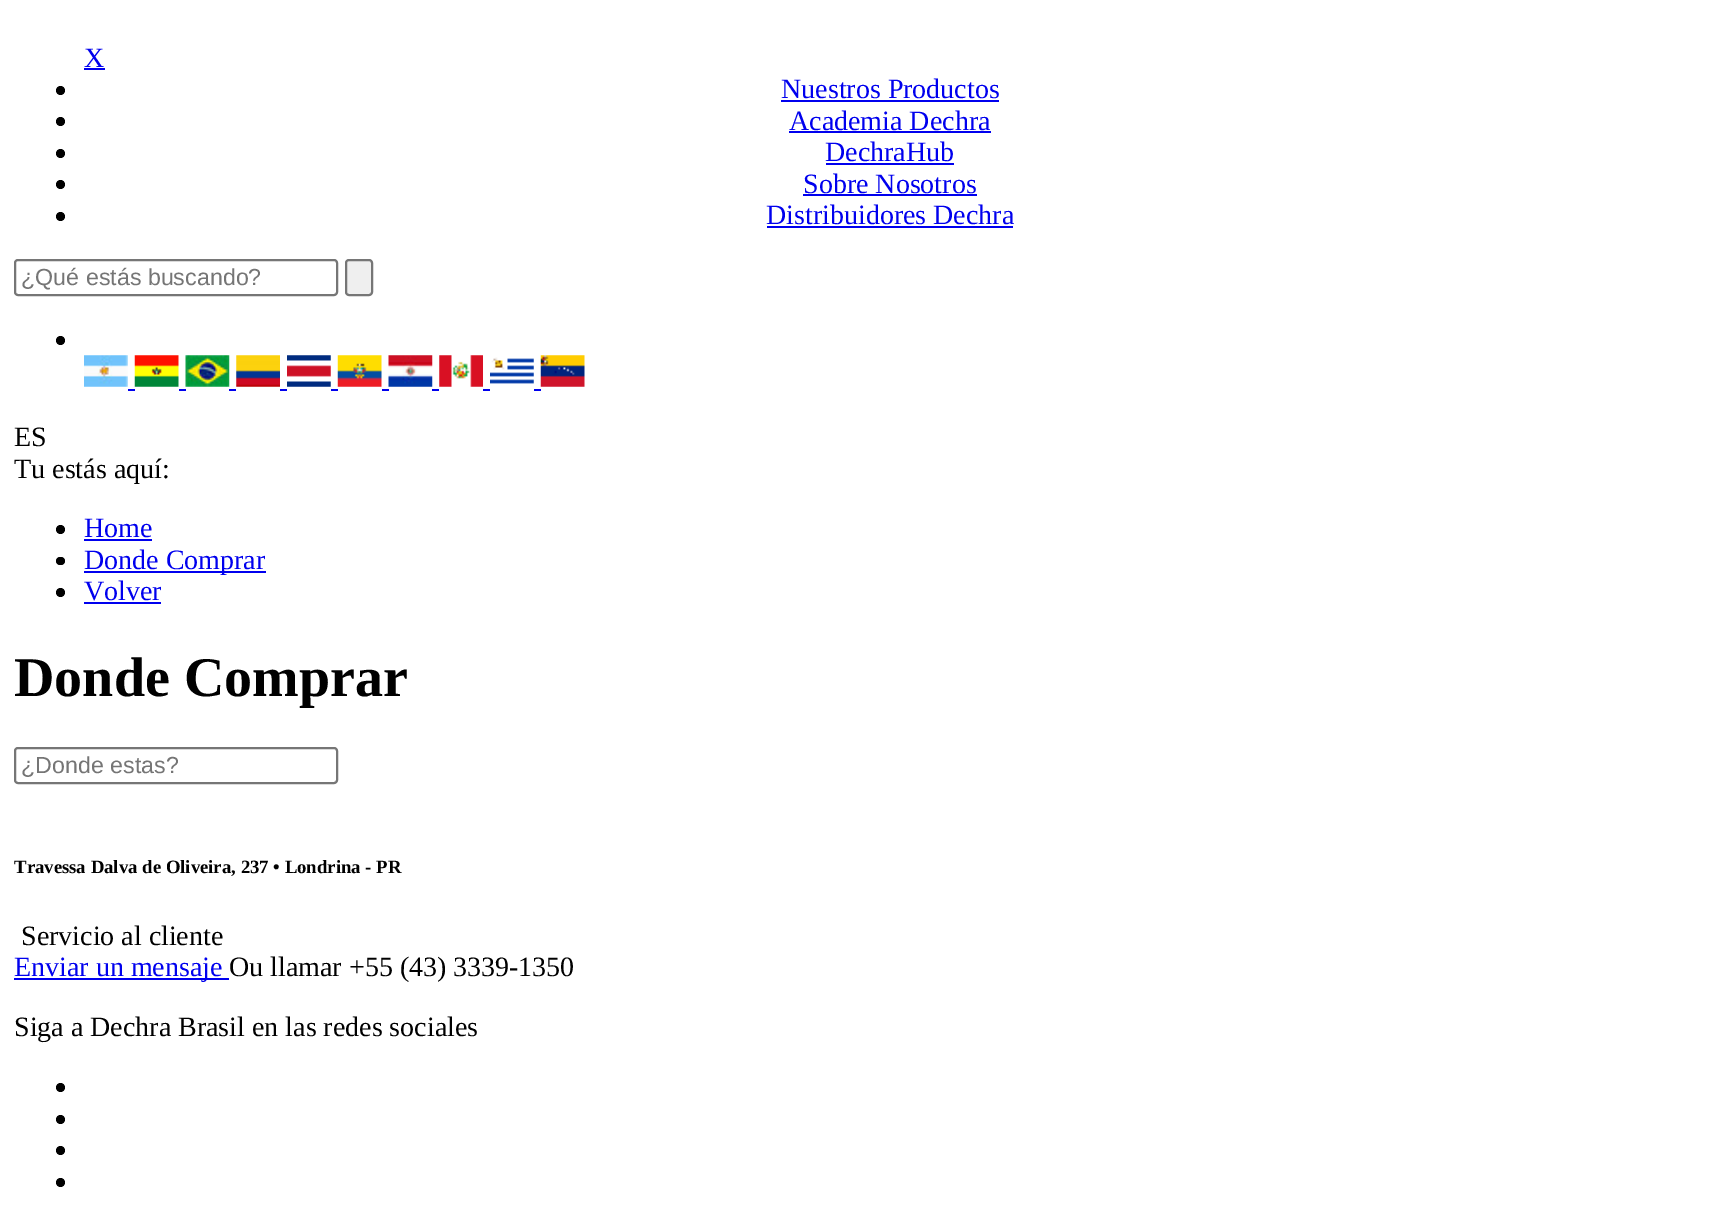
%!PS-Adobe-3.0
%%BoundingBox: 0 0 1709 1213
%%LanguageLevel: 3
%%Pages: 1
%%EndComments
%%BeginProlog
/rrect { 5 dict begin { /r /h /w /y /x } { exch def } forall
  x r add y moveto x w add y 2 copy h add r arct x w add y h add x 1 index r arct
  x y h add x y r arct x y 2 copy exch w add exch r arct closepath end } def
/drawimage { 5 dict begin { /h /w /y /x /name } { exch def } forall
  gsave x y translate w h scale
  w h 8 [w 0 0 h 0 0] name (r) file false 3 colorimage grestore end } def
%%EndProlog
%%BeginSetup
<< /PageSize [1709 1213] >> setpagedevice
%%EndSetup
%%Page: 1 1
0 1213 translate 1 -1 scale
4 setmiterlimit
1 setgray
0 0 1709 1213 rectfill
0 0 0.933 setrgbcolor
84 68 21 2 rectfill
0 setgray
newpath 60.5 90.5 4.5 0 360 arc closepath fill
0 0 0.933 setrgbcolor
781 100 218 2 rectfill
0 setgray
newpath 60.5 121.5 4.5 0 360 arc closepath fill
0 0 0.933 setrgbcolor
789 131 202 2 rectfill
0 setgray
newpath 60.5 153.5 4.5 0 360 arc closepath fill
0 0 0.933 setrgbcolor
826 163 128 2 rectfill
0 setgray
newpath 60.5 184.5 4.5 0 360 arc closepath fill
0 0 0.933 setrgbcolor
803 194 174 2 rectfill
0 setgray
newpath 60.5 216.5 4.5 0 360 arc closepath fill
0 0 0.933 setrgbcolor
767 226 246 2 rectfill
0.463 setgray
2 setlinewidth
15 260 322 35 3 rrect stroke
0.937 setgray
346 260 26 35 3 rrect gsave fill grestore
0.463 setgray
stroke
0 setgray
newpath 60.5 340.5 4.5 0 360 arc closepath fill
(images/1.raw) 84 355 44 32 drawimage
(images/2.raw) 134 355 45 32 drawimage
(images/3.raw) 185 355 45 32 drawimage
(images/4.raw) 236 355 44 32 drawimage
(images/5.raw) 287 355 44 32 drawimage
(images/6.raw) 337 355 45 32 drawimage
(images/7.raw) 388 355 45 32 drawimage
(images/8.raw) 439 355 44 32 drawimage
(images/9.raw) 490 357 44 27 drawimage
(images/10.raw) 540 355 45 32 drawimage
0 0 0.933 setrgbcolor
128 389 7 2 rectfill
179 389 7 2 rectfill
229 389 7 2 rectfill
280 389 7 2 rectfill
331 389 7 2 rectfill
382 389 7 2 rectfill
432 389 7 2 rectfill
483 389 7 2 rectfill
534 389 7 2 rectfill
0 setgray
newpath 60.5 529.5 4.5 0 360 arc closepath fill
0 0 0.933 setrgbcolor
84 539 68 2 rectfill
0 setgray
56 557 9 8 4 rrect fill
0 0 0.933 setrgbcolor
84 571 182 2 rectfill
0 setgray
newpath 60.5 592.5 4.5 0 360 arc closepath fill
0 0 0.933 setrgbcolor
84 602 77 2 rectfill
0.463 setgray
15 748 322 35 3 rrect stroke
0 0 0.933 setrgbcolor
14 978 215 2 rectfill
0 setgray
newpath 60.5 1087.5 4.5 0 360 arc closepath fill
newpath 60.5 1119.5 4.5 0 360 arc closepath fill
newpath 60.5 1150.5 4.5 0 360 arc closepath fill
newpath 60.5 1182.5 4.5 0 360 arc closepath fill
/LiberationSerif-Regular [28 0 0 -28 0 0] selectfont
0 0 0.933 setrgbcolor
84 67 moveto (X) show
781 98 moveto (Nuestros Productos) show
789 130 moveto (Academia Dechra) show
825 161 moveto (DechraHub) show
803 193 moveto (Sobre Nosotros) show
766 224 moveto (Distribuidores Dechra) show
/LiberationSans-Regular [23.25 0 0 -23.25 0 0] selectfont
0.459 setgray
21 285 moveto (¿Qué estás buscando?) show
/LiberationSerif-Regular [28 0 0 -28 0 0] selectfont
0 setgray
14 446 moveto (ES) show
14 478 moveto (Tu estás aquí:) show
0 0 0.933 setrgbcolor
84 537 moveto (Home) show
84 569 moveto (Donde Comprar) show
84 600 moveto (Volver) show
/LiberationSerif-Bold [56 0 0 -56 0 0] selectfont
0 setgray
14 696 moveto (Donde Comprar) show
/LiberationSans-Regular [23.25 0 0 -23.25 0 0] selectfont
0.459 setgray
21 773 moveto (¿Donde estas?) show
/LiberationSerif-Bold [18.75 0 0 -18.75 0 0] selectfont
0 setgray
14 873 moveto (Travessa Dalva de Oliveira, 237 • Londrina - PR) show
/LiberationSerif-Regular [28 0 0 -28 0 0] selectfont
21 945 moveto (Servicio al cliente) show
0 0 0.933 setrgbcolor
14 976 moveto (Enviar un mensaje) show
0 setgray
229 976 moveto (Ou llamar +55 \(43\) 3339-1350) show
14 1036 moveto (Siga a Dechra Brasil en las redes sociales) show
showpage
%%EOF
